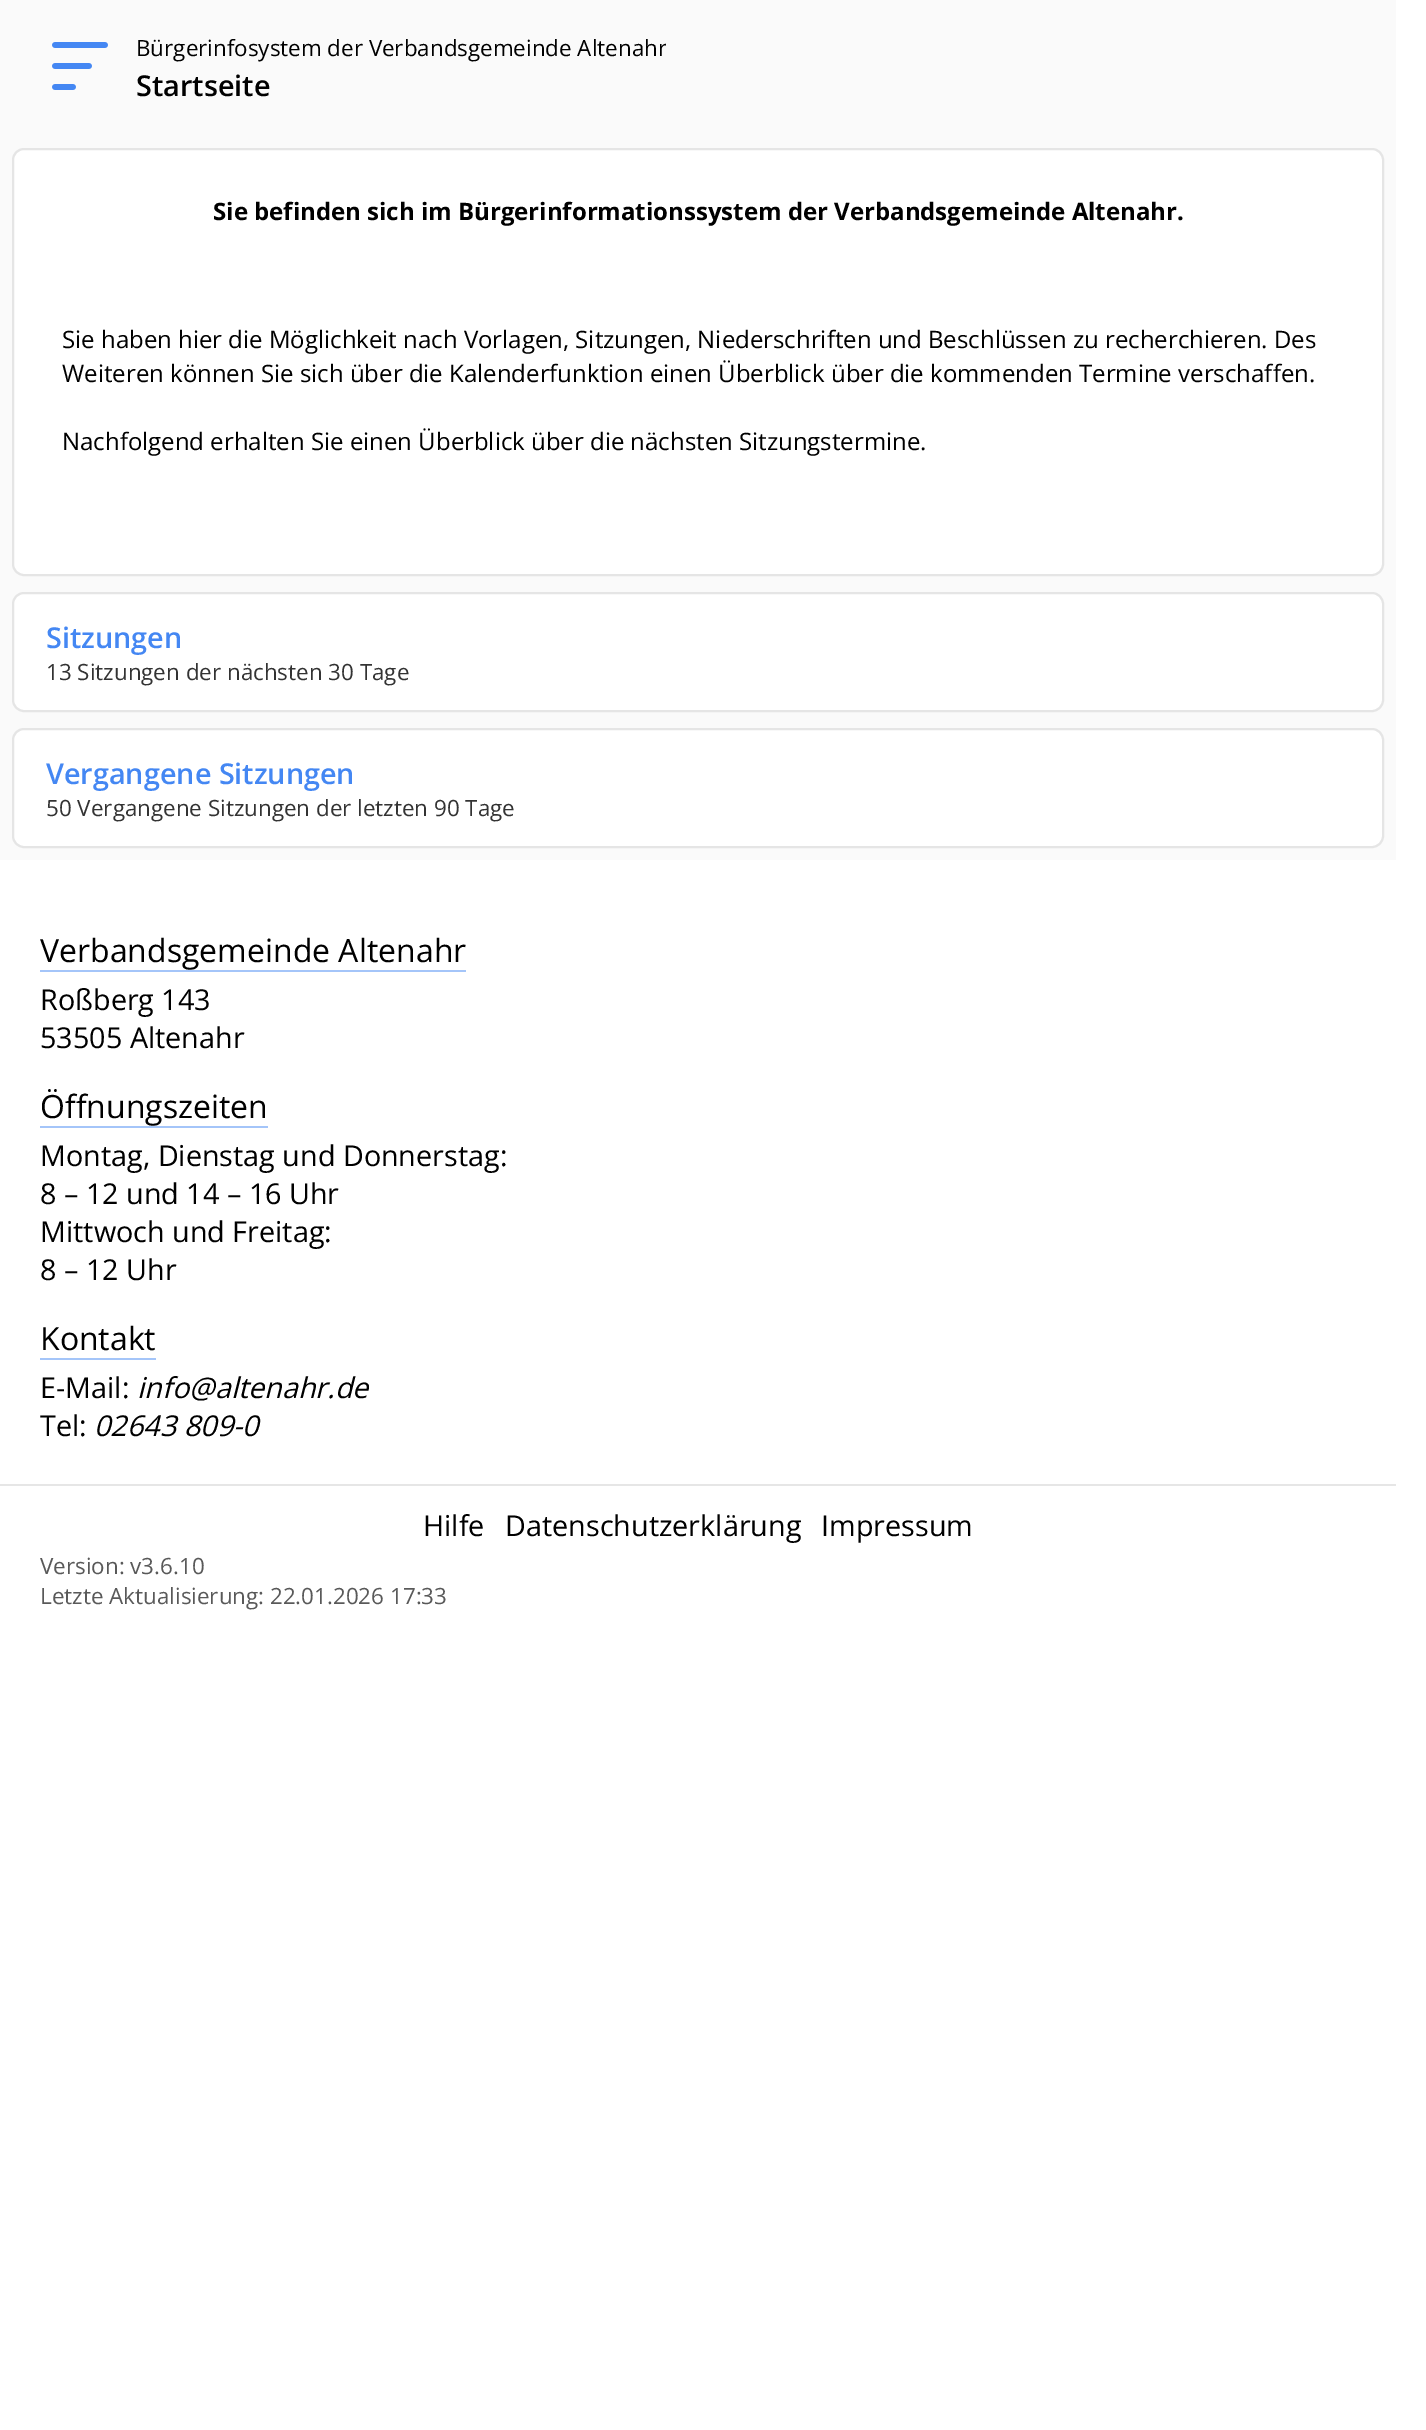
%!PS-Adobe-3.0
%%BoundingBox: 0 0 1426 2430
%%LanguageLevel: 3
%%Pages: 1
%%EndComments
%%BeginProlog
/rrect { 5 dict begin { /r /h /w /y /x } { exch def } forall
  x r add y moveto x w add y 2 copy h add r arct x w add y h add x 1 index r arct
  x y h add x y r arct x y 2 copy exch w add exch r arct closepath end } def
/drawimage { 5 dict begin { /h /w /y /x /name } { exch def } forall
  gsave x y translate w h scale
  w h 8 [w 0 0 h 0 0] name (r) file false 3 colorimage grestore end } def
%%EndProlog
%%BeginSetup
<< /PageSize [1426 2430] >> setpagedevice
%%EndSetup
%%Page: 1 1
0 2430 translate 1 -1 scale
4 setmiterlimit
1 setgray
0 0 1426 2430 rectfill
0.98 setgray
0 0 1396 860 rectfill
(images/1.raw) 52 42 56 48 drawimage
1 setgray
13 149 1370 426 11 rrect gsave fill grestore
0.898 setgray
2 setlinewidth
stroke
1 setgray
13 593 1370 118 11 rrect gsave fill grestore
0.898 setgray
stroke
1 setgray
13 729 1370 118 11 rrect gsave fill grestore
0.898 setgray
stroke
0.643 0.773 0.976 setrgbcolor
40 970 426 2 rectfill
40 1126 228 2 rectfill
40 1358 116 2 rectfill
0.902 setgray
0 1484 1396 2 rectfill
gsave
136 32 530 30 rectclip
/OpenSans-Regular [22.4 0 0 -22.4 0 0] selectfont
0 setgray
136 56 moveto (Bürgerinfosystem der Verbandsgemeinde Altenahr) show
grestore
/OpenSans-SemiBold [28.75 0 0 -28.75 0 0] selectfont
0 setgray
136 96 moveto (Startseite) show
/OpenSans-Bold [24 0 0 -24 0 0] selectfont
213 220 moveto (Sie befinden sich im Bürgerinformationssystem der Verbandsgemeinde Altenahr.) show
/OpenSans-Regular [24 0 0 -24 0 0] selectfont
62 348 moveto (Sie haben hier die Möglichkeit nach Vorlagen, Sitzungen, Niederschriften und Beschlüssen zu recherchieren. Des) show
62 382 moveto (Weiteren können Sie sich über die Kalenderfunktion einen Überblick über die kommenden Termine verschaffen.) show
62 450 moveto (Nachfolgend erhalten Sie einen Überblick über die nächsten Sitzungstermine.) show
/OpenSans-SemiBold [28.75 0 0 -28.75 0 0] selectfont
0.267 0.529 0.953 setrgbcolor
46 648 moveto (Sitzungen) show
/OpenSans-Regular [22.4 0 0 -22.4 0 0] selectfont
0.2 setgray
46 680 moveto (13 Sitzungen der nächsten 30 Tage) show
/OpenSans-SemiBold [28.75 0 0 -28.75 0 0] selectfont
0.267 0.529 0.953 setrgbcolor
46 784 moveto (Vergangene Sitzungen) show
/OpenSans-Regular [22.4 0 0 -22.4 0 0] selectfont
0.2 setgray
46 816 moveto (50 Vergangene Sitzungen der letzten 90 Tage) show
/OpenSans-Regular [32 0 0 -32 0 0] selectfont
0 setgray
40 962 moveto (Verbandsgemeinde Altenahr) show
/OpenSans-Regular [28.75 0 0 -28.75 0 0] selectfont
40 1010 moveto (Roßberg 143) show
40 1048 moveto (53505 Altenahr) show
/OpenSans-Regular [32 0 0 -32 0 0] selectfont
40 1118 moveto (Öffnungszeiten) show
/OpenSans-Regular [28.75 0 0 -28.75 0 0] selectfont
40 1166 moveto (Montag, Dienstag und Donnerstag:) show
40 1204 moveto (8 – 12 und 14 – 16 Uhr) show
40 1242 moveto (Mittwoch und Freitag:) show
40 1280 moveto (8 – 12 Uhr) show
/OpenSans-Regular [32 0 0 -32 0 0] selectfont
40 1350 moveto (Kontakt) show
/OpenSans-Regular [28.75 0 0 -28.75 0 0] selectfont
40 1398 moveto (E-Mail:) show
/OpenSans-Italic [28.75 0 0 -28.75 0 0] selectfont
137 1398 moveto (info@altenahr.de) show
/OpenSans-Regular [28.75 0 0 -28.75 0 0] selectfont
40 1436 moveto (Tel:) show
/OpenSans-Italic [28.75 0 0 -28.75 0 0] selectfont
94 1436 moveto (02643 809-0) show
/OpenSans-Regular [28.75 0 0 -28.75 0 0] selectfont
423 1536 moveto (Hilfe) show
505 1536 moveto (Datenschutzerklärung) show
821 1536 moveto (Impressum) show
/OpenSans-Regular [22.4 0 0 -22.4 0 0] selectfont
0.349 setgray
40 1574 moveto (Version: v3.6.10) show
40 1604 moveto (Letzte Aktualisierung: 22.01.2026 17:33) show
showpage
%%EOF
